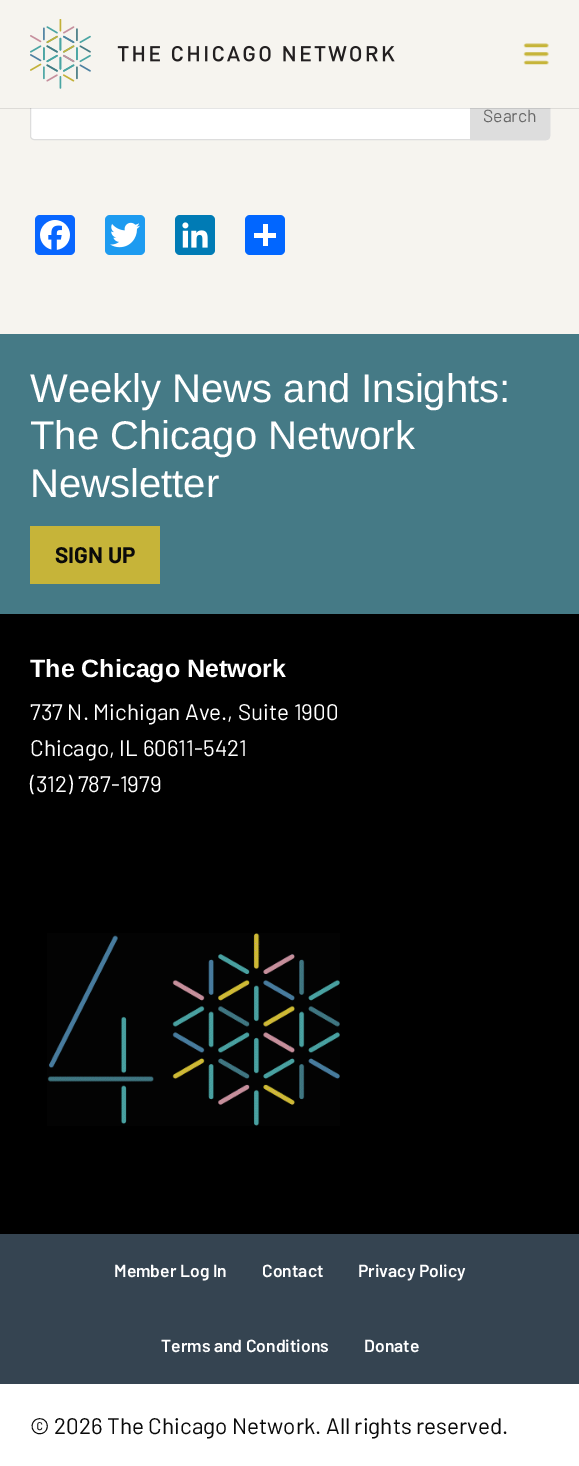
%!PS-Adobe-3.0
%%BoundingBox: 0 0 579 1466
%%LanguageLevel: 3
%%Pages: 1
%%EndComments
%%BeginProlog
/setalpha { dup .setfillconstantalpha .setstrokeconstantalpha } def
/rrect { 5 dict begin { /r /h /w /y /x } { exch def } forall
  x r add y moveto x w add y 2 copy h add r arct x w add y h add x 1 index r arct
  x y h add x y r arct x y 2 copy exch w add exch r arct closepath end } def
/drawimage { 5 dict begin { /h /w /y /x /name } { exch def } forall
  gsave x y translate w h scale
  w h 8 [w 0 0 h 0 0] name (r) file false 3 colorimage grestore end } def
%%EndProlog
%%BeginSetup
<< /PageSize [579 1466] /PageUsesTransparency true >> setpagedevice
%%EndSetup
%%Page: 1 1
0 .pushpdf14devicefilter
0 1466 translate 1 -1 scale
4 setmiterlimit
1 setgray
0 0 579 1466 rectfill
0.965 0.957 0.937 setrgbcolor
0 108 579 226 rectfill
1 setgray
30.5 90.5 519 49 3.5 rrect gsave fill grestore
0.867 setgray
stroke
newpath 470.5 90.5 moveto 546 90.5 lineto 548 90.5 549.5 92 549.5 94 curveto 549.5 136 lineto 549.5 138 548 139.5 546 139.5 curveto 470.5 139.5 lineto closepath gsave fill grestore
stroke
0.1 setalpha
0 setgray
0 108 579 1 rectfill
1 setalpha
0.965 0.957 0.937 setrgbcolor
0 0 579 108 rectfill
(images/1.raw) 30 19 365 70 drawimage
(images/2.raw) 523 43 26 22 drawimage
0.031 0.4 1 setrgbcolor
35 215 40 40 5 rrect fill
(images/3.raw) 40 220 30 30 drawimage
0.114 0.608 0.941 setrgbcolor
105 215 40 40 5 rrect fill
(images/4.raw) 110 222 30 26 drawimage
0 0.482 0.71 setrgbcolor
175 215 40 40 5 rrect fill
(images/5.raw) 182 222 26 26 drawimage
0.004 0.4 1 setrgbcolor
245 215 40 40 5 rrect fill
1 setgray
263 224 5 22 rectfill
254 233 22 5 rectfill
0.271 0.478 0.525 setrgbcolor
0 334 579 280 rectfill
0.776 0.706 0.224 setrgbcolor
30 526 130 58 rectfill
0 setgray
0 614 579 620 rectfill
(images/6.raw) 47 933 293 193 drawimage
0.208 0.267 0.318 setrgbcolor
0 1234 579 150 rectfill
/Barlow-Regular [17.5 0 0 -17.5 0 0] selectfont
0.4 setgray
483 122 moveto (Search) show
/LiberationSans-Regular [40 0 0 -40 0 0] selectfont
1 setgray
30 402 moveto (Weekly News and Insights:) show
30 449 moveto (The Chicago Network) show
30 497 moveto (Newsletter) show
/Barlow-Bold [22.5 0 0 -22.5 0 0] selectfont
0.039 setgray
55 563 moveto (SIGN UP) show
/LiberationSans-Bold [25 0 0 -25 0 0] selectfont
1 setgray
30 677 moveto (The Chicago Network) show
/Barlow-Regular [22.5 0 0 -22.5 0 0] selectfont
30 720 moveto (737 N. Michigan Ave., Suite 1900) show
30 756 moveto (Chicago, IL 60611-5421) show
30 792 moveto (\(312\) 787-1979) show
/Barlow-SemiBold [17.5 0 0 -17.5 0 0] selectfont
114 1277 moveto (Member Log In) show
262 1277 moveto (Contact) show
358 1277 moveto (Privacy Policy) show
161 1352 moveto (Terms and Conditions) show
364 1352 moveto (Donate) show
/Barlow-Regular [22.5 0 0 -22.5 0 0] selectfont
0.039 setgray
30 1434 moveto (© 2026 The Chicago Network. All rights reserved.) show
.poppdf14devicefilter showpage
%%EOF
